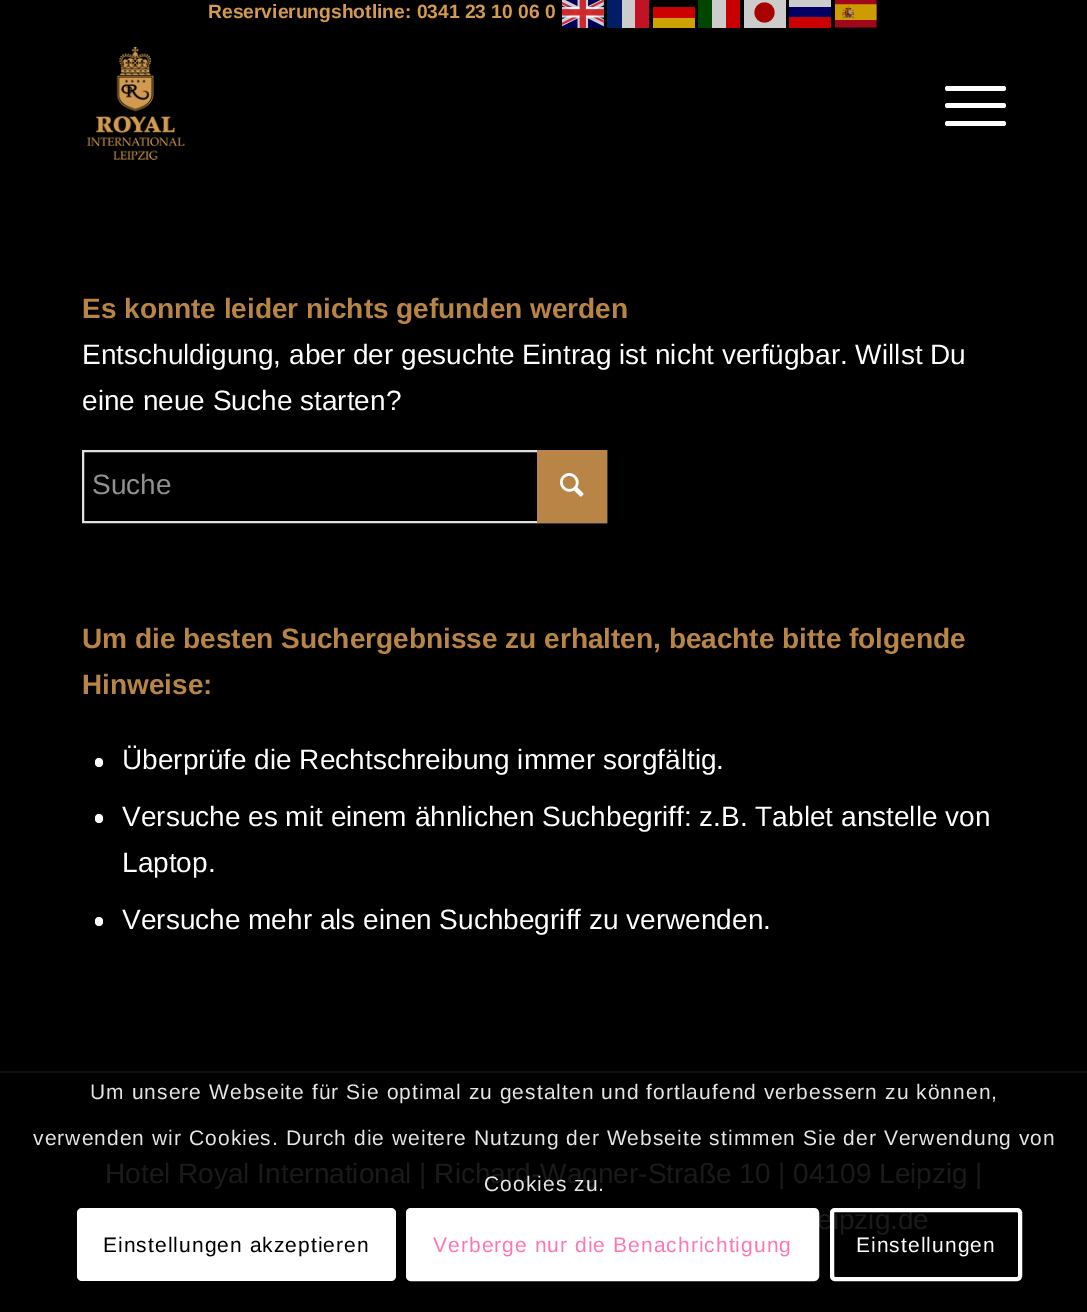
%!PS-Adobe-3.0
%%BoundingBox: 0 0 1087 1312
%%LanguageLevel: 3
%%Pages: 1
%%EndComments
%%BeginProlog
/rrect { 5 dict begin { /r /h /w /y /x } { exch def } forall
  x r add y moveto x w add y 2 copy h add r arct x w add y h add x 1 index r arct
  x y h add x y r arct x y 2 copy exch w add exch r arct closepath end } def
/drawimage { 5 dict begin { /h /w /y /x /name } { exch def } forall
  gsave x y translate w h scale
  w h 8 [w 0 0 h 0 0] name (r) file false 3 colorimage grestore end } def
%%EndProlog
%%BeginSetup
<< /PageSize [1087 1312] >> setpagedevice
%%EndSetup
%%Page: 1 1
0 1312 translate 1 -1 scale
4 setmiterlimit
0 setgray
0 0 1087 1312 rectfill
(images/1.raw) 562 0 42 28 drawimage
0 0.118 0.4 setrgbcolor
607 0 15 28 rectfill
0.8 setgray
622 0 13 28 rectfill
0.761 0.075 0.149 setrgbcolor
635 0 14 28 rectfill
0 0.275 0 setrgbcolor
698 0 14 28 rectfill
0.8 setgray
712 0 14 28 rectfill
0.792 0 0 setrgbcolor
726 0 14 28 rectfill
0.8 setgray
744 0 42 28 rectfill
789 0 42 7 rectfill
(images/2.raw) 835 0 42 28 drawimage
0.8 0 0 setrgbcolor
653 7 42 11 rectfill
0.663 0 0 setrgbcolor
newpath 764.5 12.5 10 0 360 arc closepath fill
0.004 0.004 0.396 setrgbcolor
789 7 42 10 rectfill
0.8 0.639 0 setrgbcolor
653 18 42 10 rectfill
0.796 0.004 0.004 setrgbcolor
789 17 42 11 rectfill
(images/3.raw) 86 46 99 114 drawimage
1 setgray
945 103 61 5 2.5 rrect fill
945 86 61 5 2.5 rrect fill
945 121 61 5 2.5 rrect fill
0.882 setgray
2 setlinewidth
83 451 523 71 rectstroke
0.722 0.522 0.275 setrgbcolor
537 450 70 73 rectfill
(images/4.raw) 560 473 24 24 drawimage
1 setgray
95 758 8 9 4 rrect fill
95 814 8 9 4 rrect fill
95 917 8 9 4 rrect fill
0.051 setgray
0 1071 1087 2 rectfill
1 setgray
77 1208 319 73 5 rrect fill
/LiberationSans-Bold [19.25 0 0 -19.25 0 0] selectfont
0.827 0.604 0.314 setrgbcolor
208 18 moveto (Reservierungshotline: 0341 23 10 06 0) show
/LiberationSans-Bold [28 0 0 -28 0 0] selectfont
0.722 0.522 0.275 setrgbcolor
82 318 moveto (Es konnte leider nichts gefunden werden) show
/LiberationSans-Regular [28 0 0 -28 0 0] selectfont
1 setgray
82 364 moveto (Entschuldigung, aber der gesuchte Eintrag ist nicht verfügbar. Willst Du) show
82 410 moveto (eine neue Suche starten?) show
0.569 setgray
92 494 moveto (Suche) show
/LiberationSans-Bold [28 0 0 -28 0 0] selectfont
0.722 0.522 0.275 setrgbcolor
82 648 moveto (Um die besten Suchergebnisse zu erhalten, beachte bitte folgende) show
82 694 moveto (Hinweise:) show
/LiberationSans-Regular [28 0 0 -28 0 0] selectfont
1 setgray
122 769 moveto (Überprüfe die Rechtschreibung immer sorgfältig.) show
122 826 moveto (Versuche es mit einem ähnlichen Suchbegriff: z.B. Tablet anstelle von) show
122 872 moveto (Laptop.) show
122 929 moveto (Versuche mehr als einen Suchbegriff zu verwenden.) show
0.102 setgray
105 1183 moveto (Hotel Royal International | Richard-Wagner-Straße 10 | 04109 Leipzig |) show
817 1229 moveto (eipzig.de) show
/LiberationSans-Regular [21 0 0 -21 0 0] selectfont
0.902 setgray
90 1099 moveto 1.05 0 (Um unsere Webseite für Sie optimal zu gestalten und fortlaufend verbessern zu können,) ashow
33 1145 moveto 1.05 0 (verwenden wir Cookies. Durch die weitere Nutzung der Webseite stimmen Sie der Verwendung von) ashow
484 1191 moveto 1.05 0 (Cookies zu.) ashow
0 setgray
103 1252 moveto 1.05 0 (Einstellungen akzeptieren) ashow
1 setgray
408 1210 409 69 3 rrect gsave fill grestore
4 setlinewidth
stroke
1 0.459 0.71 setrgbcolor
433 1252 moveto 1.05 0 (Verberge nur die Benachrichtigung) ashow
1 setgray
832 1210 188 69 3 rrect stroke
856 1252 moveto 1.05 0 (Einstellungen) ashow
showpage
%%EOF
